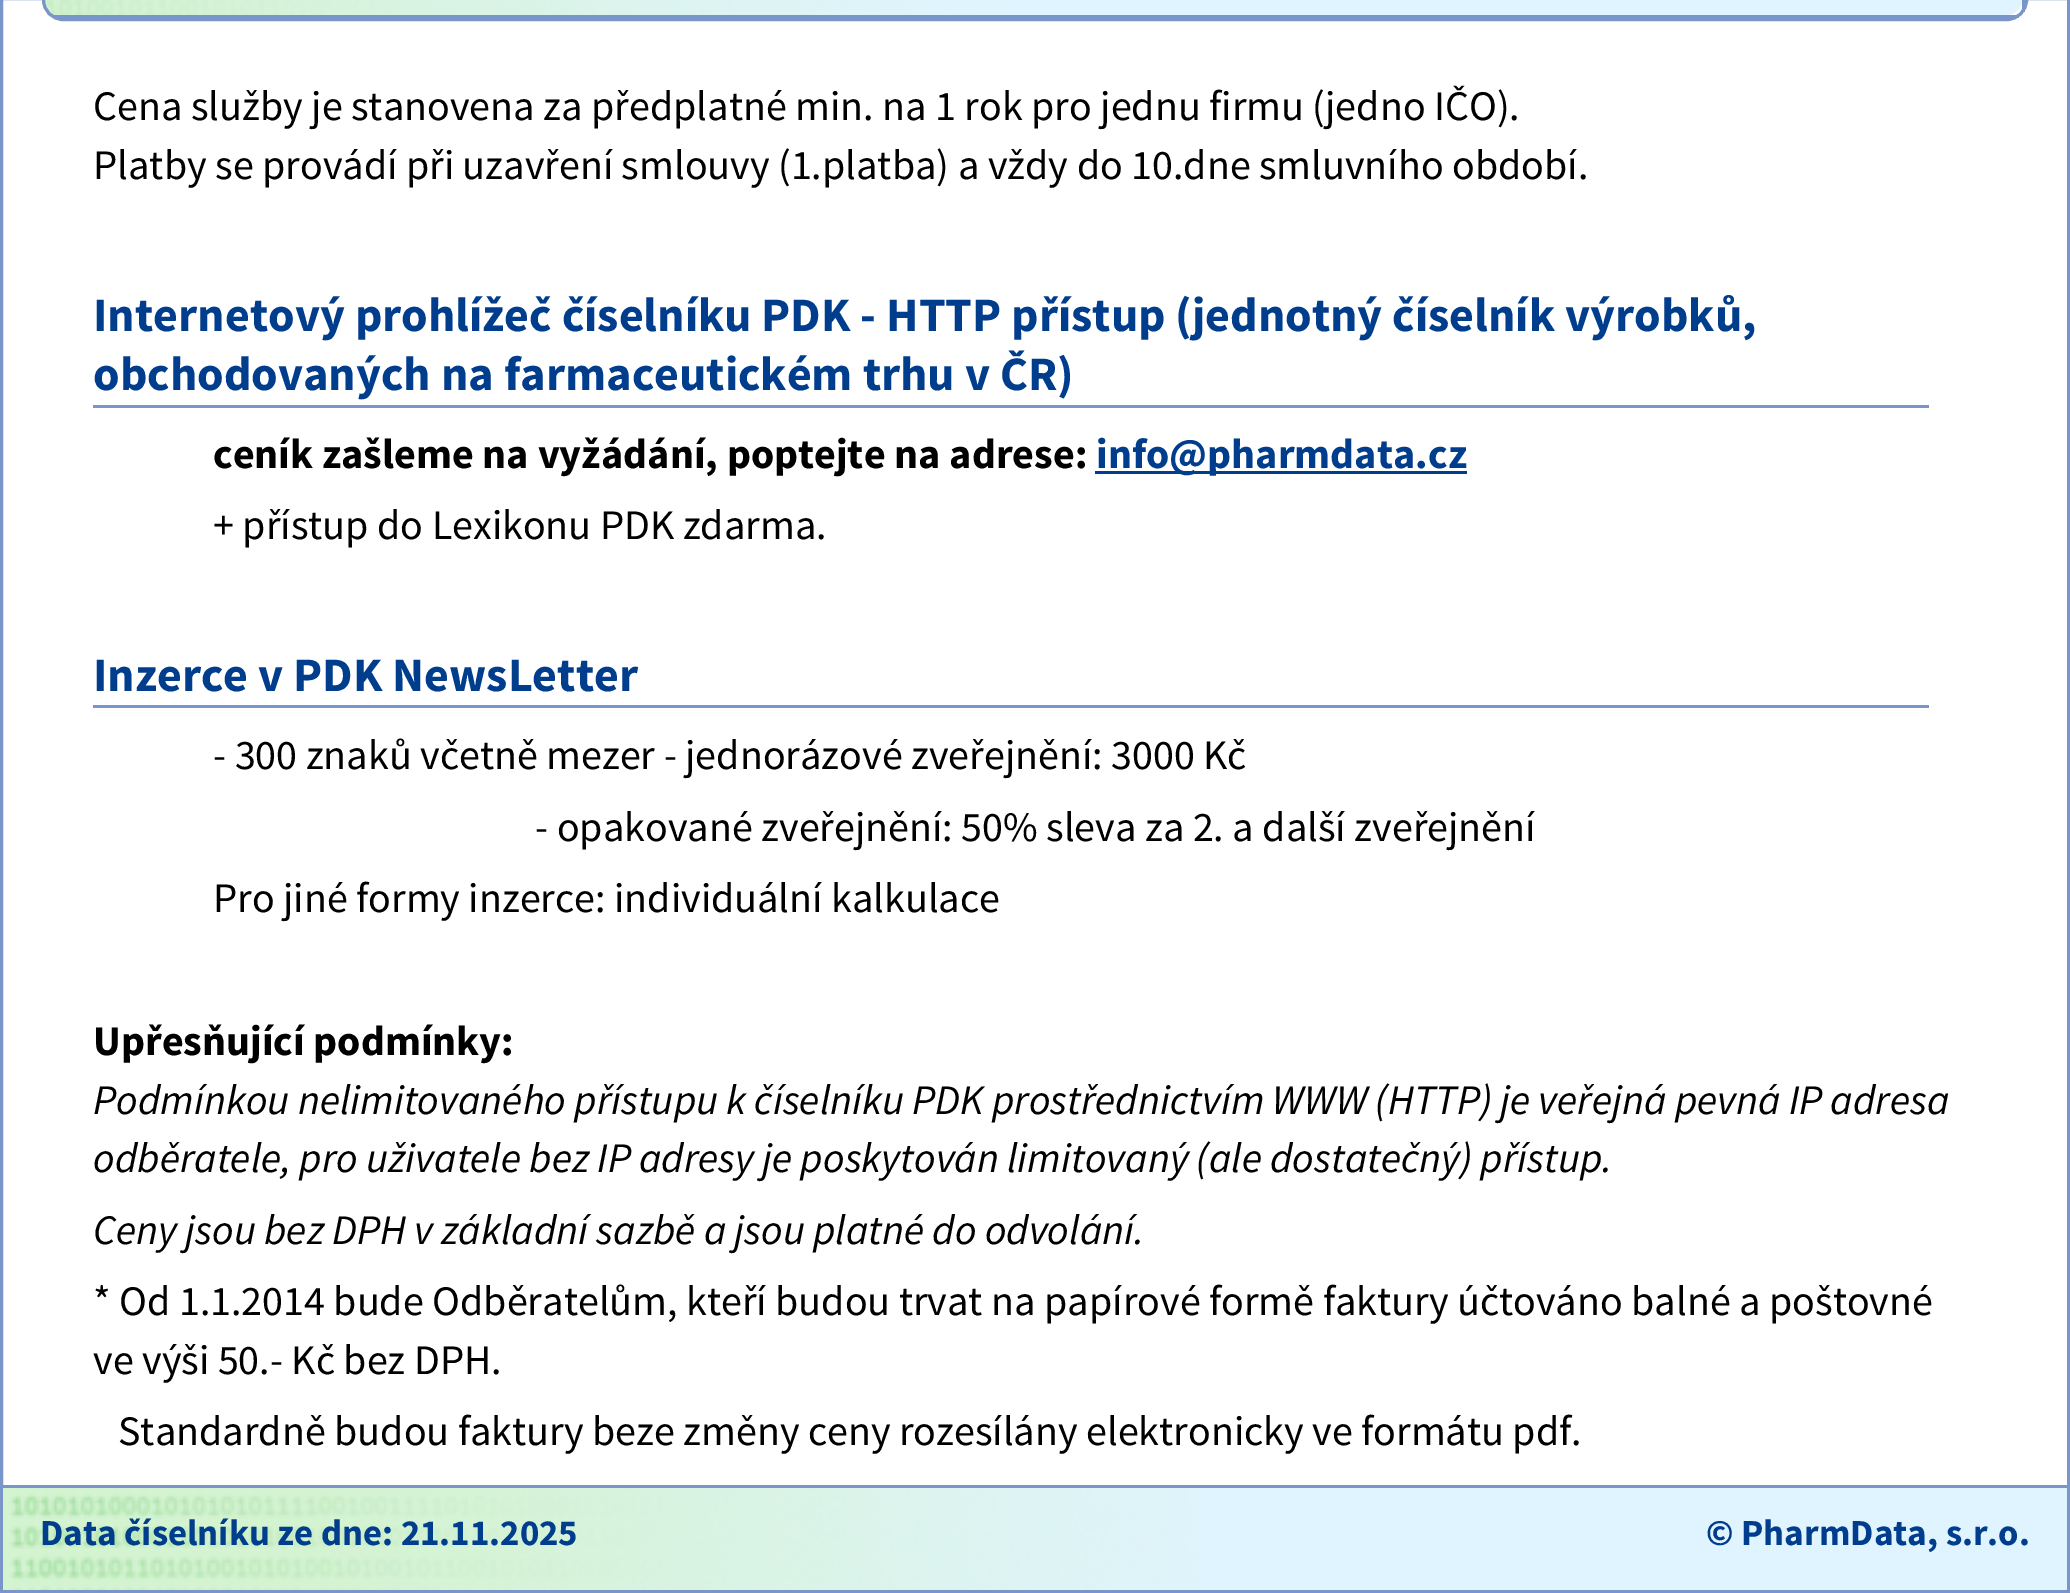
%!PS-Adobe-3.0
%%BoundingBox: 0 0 2070 1593
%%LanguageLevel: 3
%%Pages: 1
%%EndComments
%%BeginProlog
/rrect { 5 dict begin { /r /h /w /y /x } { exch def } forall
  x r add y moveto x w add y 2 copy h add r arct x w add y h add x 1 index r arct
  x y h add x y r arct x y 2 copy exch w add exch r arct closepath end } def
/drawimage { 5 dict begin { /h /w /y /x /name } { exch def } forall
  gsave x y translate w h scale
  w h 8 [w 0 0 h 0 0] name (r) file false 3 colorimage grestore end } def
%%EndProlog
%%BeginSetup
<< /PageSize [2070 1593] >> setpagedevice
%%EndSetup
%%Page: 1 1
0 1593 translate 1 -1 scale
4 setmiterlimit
1 setgray
0 0 2070 1593 rectfill
0.478 0.584 0.792 setrgbcolor
3 setlinewidth
1.5 -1.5 2067 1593 rectstroke
0.878 0.957 1 setrgbcolor
newpath 63 -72 moveto 2007 -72 lineto 2015 -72 2022 -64 2022 -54 curveto 2022 0 lineto 2022 8 2015 15 2007 15 curveto 63 15 lineto 53 15 45 8 45 0 curveto 45 -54 lineto 45 -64 53 -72 63 -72 curveto closepath fill
(images/1.raw) 42 0 1089 21 drawimage
0.478 0.584 0.792 setrgbcolor
43.5 -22.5 1983 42 19.5 rrect stroke
2022 0 3 12 rectfill
54 15 1965 3 rectfill
93 405 1836 3 rectfill
0 0.239 0.549 setrgbcolor
1095 471 372 3 rectfill
0.478 0.584 0.792 setrgbcolor
93 705 1836 3 rectfill
0.878 0.957 1 setrgbcolor
1200 1488 867 102 rectfill
(images/2.raw) 3 1488 1197 102 drawimage
0.478 0.584 0.792 setrgbcolor
3 1485 2064 3 rectfill
/SourceSansPro-Regular [42 0 0 -42 0 0] selectfont
0 setgray
93 120 moveto (Cena služby je stanovena za předplatné min. na 1 rok pro jednu firmu \(jedno IČO\).) show
93 179 moveto (Platby se provádí při uzavření smlouvy \(1.platba\) a vždy do 10.dne smluvního období.) show
/SourceSansPro-Bold [48 0 0 -48 0 0] selectfont
0 0.239 0.549 setrgbcolor
93 331 moveto (Internetový prohlížeč číselníku PDK - HTTP přístup \(jednotný číselník výrobků,) show
93 390 moveto (obchodovaných na farmaceutickém trhu v ČR\)) show
/SourceSansPro-Bold [42 0 0 -42 0 0] selectfont
0 setgray
213 468 moveto (ceník zašleme na vyžádání, poptejte na adrese:) show
0 0.239 0.549 setrgbcolor
1096 468 moveto (info@pharmdata.cz) show
/SourceSansPro-Regular [42 0 0 -42 0 0] selectfont
0 setgray
213 539 moveto (+ přístup do Lexikonu PDK zdarma.) show
/SourceSansPro-Bold [48 0 0 -48 0 0] selectfont
0 0.239 0.549 setrgbcolor
93 691 moveto (Inzerce v PDK NewsLetter) show
/SourceSansPro-Regular [42 0 0 -42 0 0] selectfont
0 setgray
213 769 moveto (- 300 znaků včetně mezer - jednorázové zveřejnění: 3000 Kč) show
535 841 moveto (- opakované zveřejnění: 50% sleva za 2. a další zveřejnění) show
213 912 moveto (Pro jiné formy inzerce: individuální kalkulace) show
/SourceSansPro-Bold [42 0 0 -42 0 0] selectfont
93 1055 moveto (Upřesňující podmínky:) show
/SourceSansPro-Italic [42 0 0 -42 0 0] selectfont
93 1114 moveto (Podmínkou nelimitovaného přístupu k číselníku PDK prostřednictvím WWW \(HTTP\) je veřejná pevná IP adresa) show
93 1172 moveto (odběratele, pro uživatele bez IP adresy je poskytován limitovaný \(ale dostatečný\) přístup.) show
93 1244 moveto (Ceny jsou bez DPH v základní sazbě a jsou platné do odvolání.) show
/SourceSansPro-Regular [42 0 0 -42 0 0] selectfont
93 1315 moveto (* Od 1.1.2014 bude Odběratelům, kteří budou trvat na papírové formě faktury účtováno balné a poštovné) show
93 1374 moveto (ve výši 50.- Kč bez DPH.) show
118 1445 moveto (Standardně budou faktury beze změny ceny rozesílány elektronicky ve formátu pdf.) show
/SourceSansPro-Bold [36.75 0 0 -36.75 0 0] selectfont
0 0.239 0.549 setrgbcolor
40 1545 moveto (Data číselníku ze dne: 21.11.2025) show
1706 1545 moveto (© PharmData, s.r.o.) show
showpage
%%EOF
